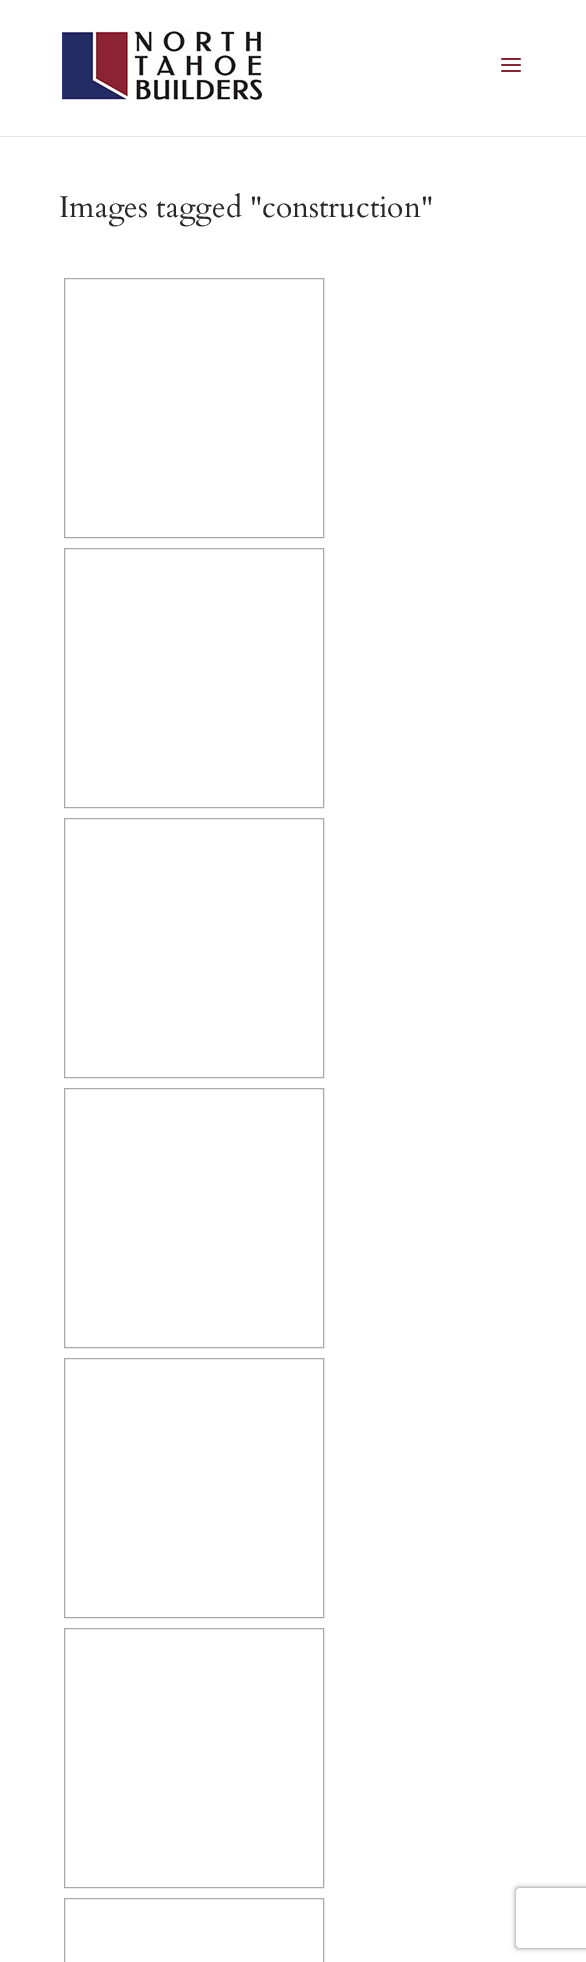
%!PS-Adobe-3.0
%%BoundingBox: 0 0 586 1962
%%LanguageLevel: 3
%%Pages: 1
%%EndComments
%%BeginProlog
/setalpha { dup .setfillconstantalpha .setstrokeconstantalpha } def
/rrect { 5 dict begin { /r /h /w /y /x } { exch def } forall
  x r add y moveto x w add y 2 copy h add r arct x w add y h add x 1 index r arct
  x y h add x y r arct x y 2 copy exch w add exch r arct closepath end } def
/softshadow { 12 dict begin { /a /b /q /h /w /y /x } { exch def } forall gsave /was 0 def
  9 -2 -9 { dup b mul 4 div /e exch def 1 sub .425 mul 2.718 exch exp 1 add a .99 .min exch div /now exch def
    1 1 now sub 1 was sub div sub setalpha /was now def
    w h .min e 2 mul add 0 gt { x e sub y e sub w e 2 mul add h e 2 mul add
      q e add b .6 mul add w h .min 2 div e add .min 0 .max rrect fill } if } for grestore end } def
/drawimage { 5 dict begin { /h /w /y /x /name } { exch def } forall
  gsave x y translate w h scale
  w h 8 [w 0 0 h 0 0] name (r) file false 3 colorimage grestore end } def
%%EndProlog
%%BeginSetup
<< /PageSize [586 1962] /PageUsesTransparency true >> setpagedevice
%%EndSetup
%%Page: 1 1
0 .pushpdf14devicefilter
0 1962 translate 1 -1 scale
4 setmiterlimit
1 setgray
0 0 586 1962 rectfill
0.902 setgray
0 136 586 1 rectfill
(images/1.raw) 62 31 200 69 drawimage
(images/2.raw) 501 58 20 14 drawimage
0.663 setgray
64.5 278.5 259 259 rectstroke
64.5 548.5 259 259 rectstroke
64.5 818.5 259 259 rectstroke
64.5 1088.5 259 259 rectstroke
64.5 1358.5 259 259 rectstroke
64.5 1628.5 259 259 rectstroke
64.5 1898.5 259 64 rectstroke
gsave
newpath 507 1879 moveto 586 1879 lineto 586 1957 lineto 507 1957 lineto closepath 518 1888 moveto 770 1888 lineto 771 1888 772 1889 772 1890 curveto 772 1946 lineto 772 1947 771 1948 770 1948 curveto 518 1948 lineto 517 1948 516 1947 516 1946 curveto 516 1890 lineto 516 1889 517 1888 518 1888 curveto closepath eoclip newpath
0.502 setgray
516 1888 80 60 2 2.5 1 softshadow
grestore
/Cardo-Regular [30 0 0 -30 0 0] selectfont
0.157 setgray
59 217 moveto (Images tagged "construction") show
.poppdf14devicefilter showpage
%%EOF
